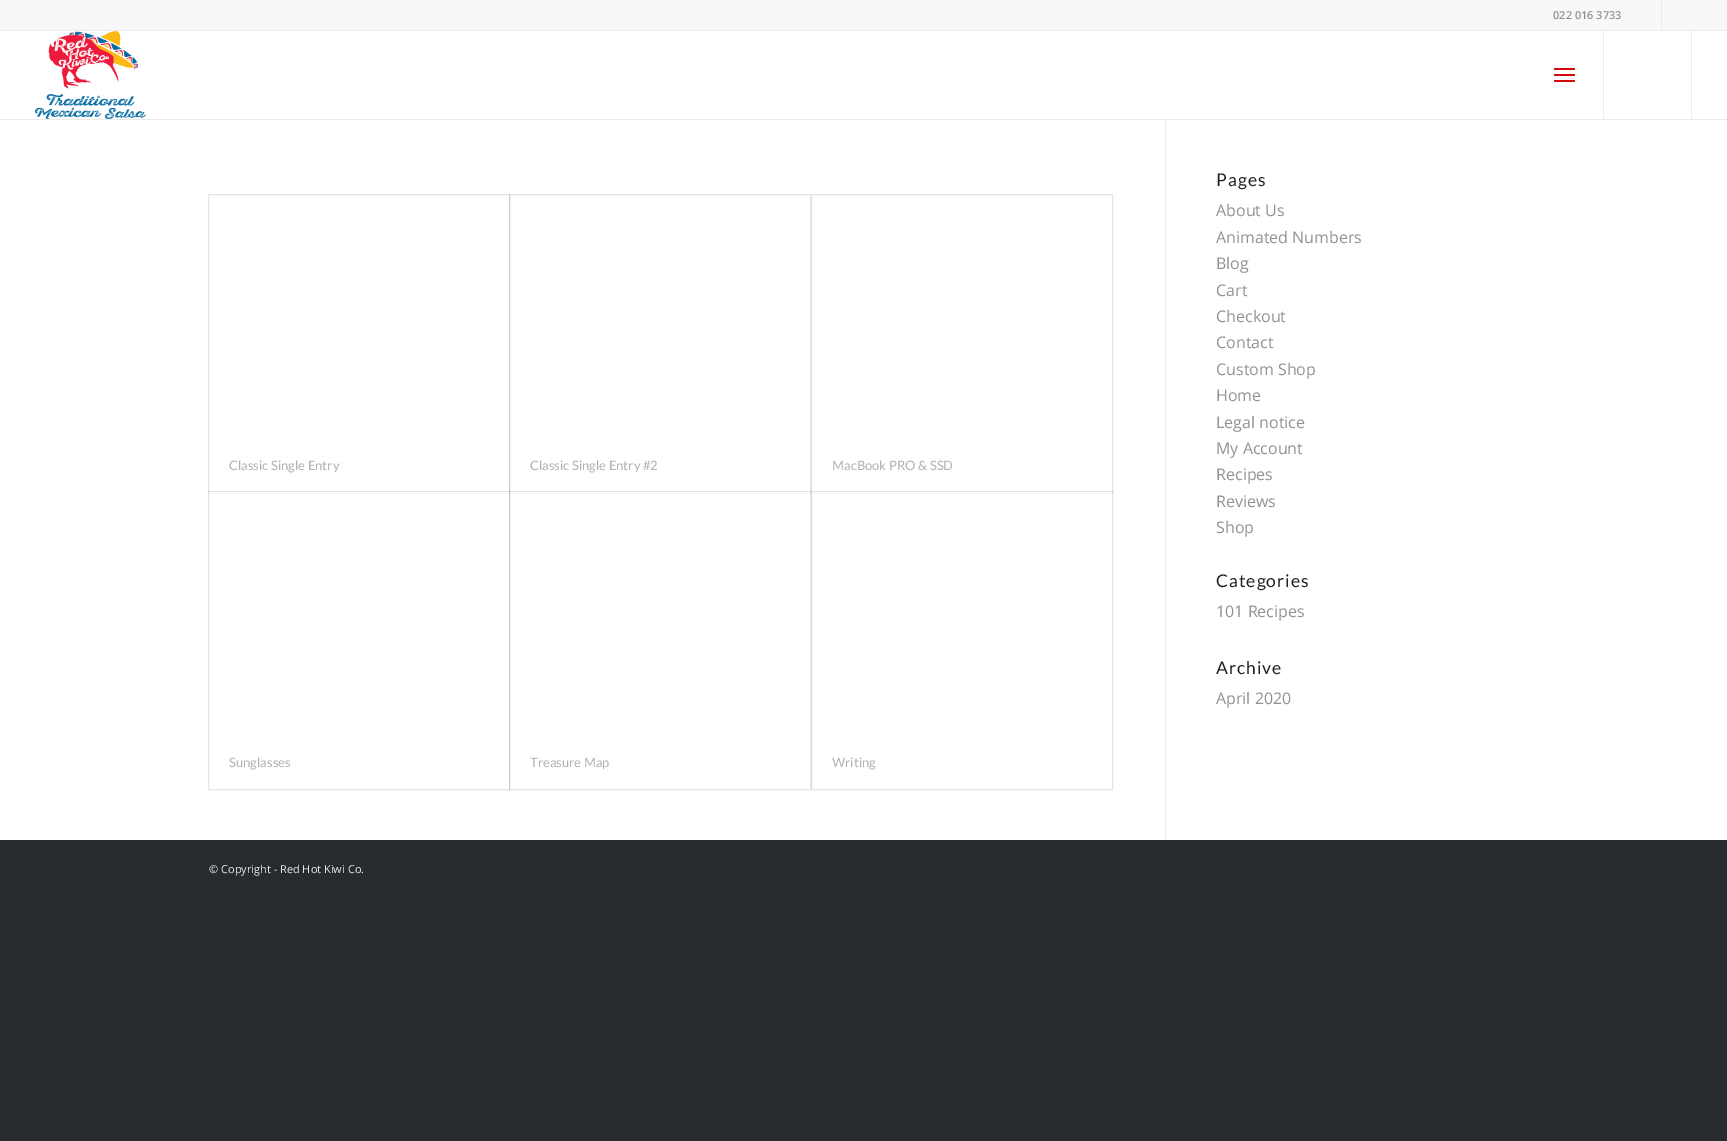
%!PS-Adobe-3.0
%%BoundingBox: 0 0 1727 1141
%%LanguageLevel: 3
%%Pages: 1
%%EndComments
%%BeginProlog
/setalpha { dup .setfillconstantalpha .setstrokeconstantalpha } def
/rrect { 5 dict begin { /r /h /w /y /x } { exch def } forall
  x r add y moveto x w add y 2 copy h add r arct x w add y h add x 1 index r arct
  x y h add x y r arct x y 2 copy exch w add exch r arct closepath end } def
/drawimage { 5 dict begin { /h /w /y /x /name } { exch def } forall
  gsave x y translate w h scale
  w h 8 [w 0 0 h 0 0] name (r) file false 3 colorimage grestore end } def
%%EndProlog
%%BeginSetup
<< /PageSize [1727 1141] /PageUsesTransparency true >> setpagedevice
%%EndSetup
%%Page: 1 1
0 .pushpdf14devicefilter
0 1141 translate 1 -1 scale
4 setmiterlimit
0.157 0.169 0.18 setrgbcolor
0 0 1727 1141 rectfill
0.973 setgray
0 0 1727 30 rectfill
0.922 setgray
0 30 1727 1 rectfill
1661 0 1 30 rectfill
0 119 1727 1 rectfill
1 setgray
0 31 1727 88 rectfill
(images/1.raw) 35 31 111 88 drawimage
0.82 0.031 0.031 setrgbcolor
1554 74 21 2 1 rrect fill
1554 68 21 2 1 rrect fill
1554 80 21 2 1 rrect fill
0.922 setgray
1691 31 1 88 rectfill
1603 31 1 88 rectfill
1 setgray
0 120 1727 720 rectfill
0.922 setgray
1165 120 1 720 rectfill
0.902 setgray
208.5 194.5 301 298 rectstroke
0.1 setalpha
0 setgray
509.5 194.5 301 298 rectstroke
1 setalpha
0.902 setgray
811.5 194.5 301 298 rectstroke
0.1 setalpha
0 setgray
208.5 491.5 301 298 rectstroke
1 setalpha
1 setgray
209 492 300 1 rectfill
0.1 setalpha
0 setgray
509.5 491.5 301 298 rectstroke
1 setalpha
1 setgray
510 492 300 1 rectfill
0.1 setalpha
0 setgray
811.5 491.5 301 298 rectstroke
1 setalpha
1 setgray
812 492 300 1 rectfill
/OpenSans-SemiBold [11 0 0 -11 0 0] selectfont
0.569 setgray
1553 19 moveto (022 016 3733) show
/Lato-Regular [13 0 0 -13 0 0] selectfont
0.69 setgray
229 470 moveto (Classic Single Entry) show
530 470 moveto (Classic Single Entry #2) show
832 470 moveto (MacBook PRO & SSD) show
229 767 moveto (Sunglasses) show
530 767 moveto (Treasure Map) show
832 767 moveto (Writing) show
/Lato-Regular [17.5 0 0 -17.5 0 0] selectfont
0.133 setgray
1216 186 moveto 1 0 (Pages) ashow
/OpenSans-Regular [16 0 0 -16 0 0] selectfont
0.569 setgray
1216 216 moveto (About Us) show
1216 243 moveto (Animated Numbers) show
1216 269 moveto (Blog) show
1216 296 moveto (Cart) show
1216 322 moveto (Checkout) show
1216 348 moveto (Contact) show
1216 375 moveto (Custom Shop) show
1216 401 moveto (Home) show
1216 428 moveto (Legal notice) show
1216 454 moveto (My Account) show
1216 480 moveto (Recipes) show
1216 507 moveto (Reviews) show
1216 533 moveto (Shop) show
/Lato-Regular [17.5 0 0 -17.5 0 0] selectfont
0.133 setgray
1216 587 moveto 1 0 (Categories) ashow
/OpenSans-Regular [16 0 0 -16 0 0] selectfont
0.569 setgray
1216 617 moveto (101 Recipes) show
/Lato-Regular [17.5 0 0 -17.5 0 0] selectfont
0.133 setgray
1216 674 moveto 1 0 (Archive) ashow
/OpenSans-Regular [16 0 0 -16 0 0] selectfont
0.569 setgray
1216 704 moveto (April 2020) show
/OpenSans-Regular [11 0 0 -11 0 0] selectfont
0.91 setgray
209 873 moveto (© Copyright - Red Hot Kiwi Co.) show
.poppdf14devicefilter showpage
%%EOF
